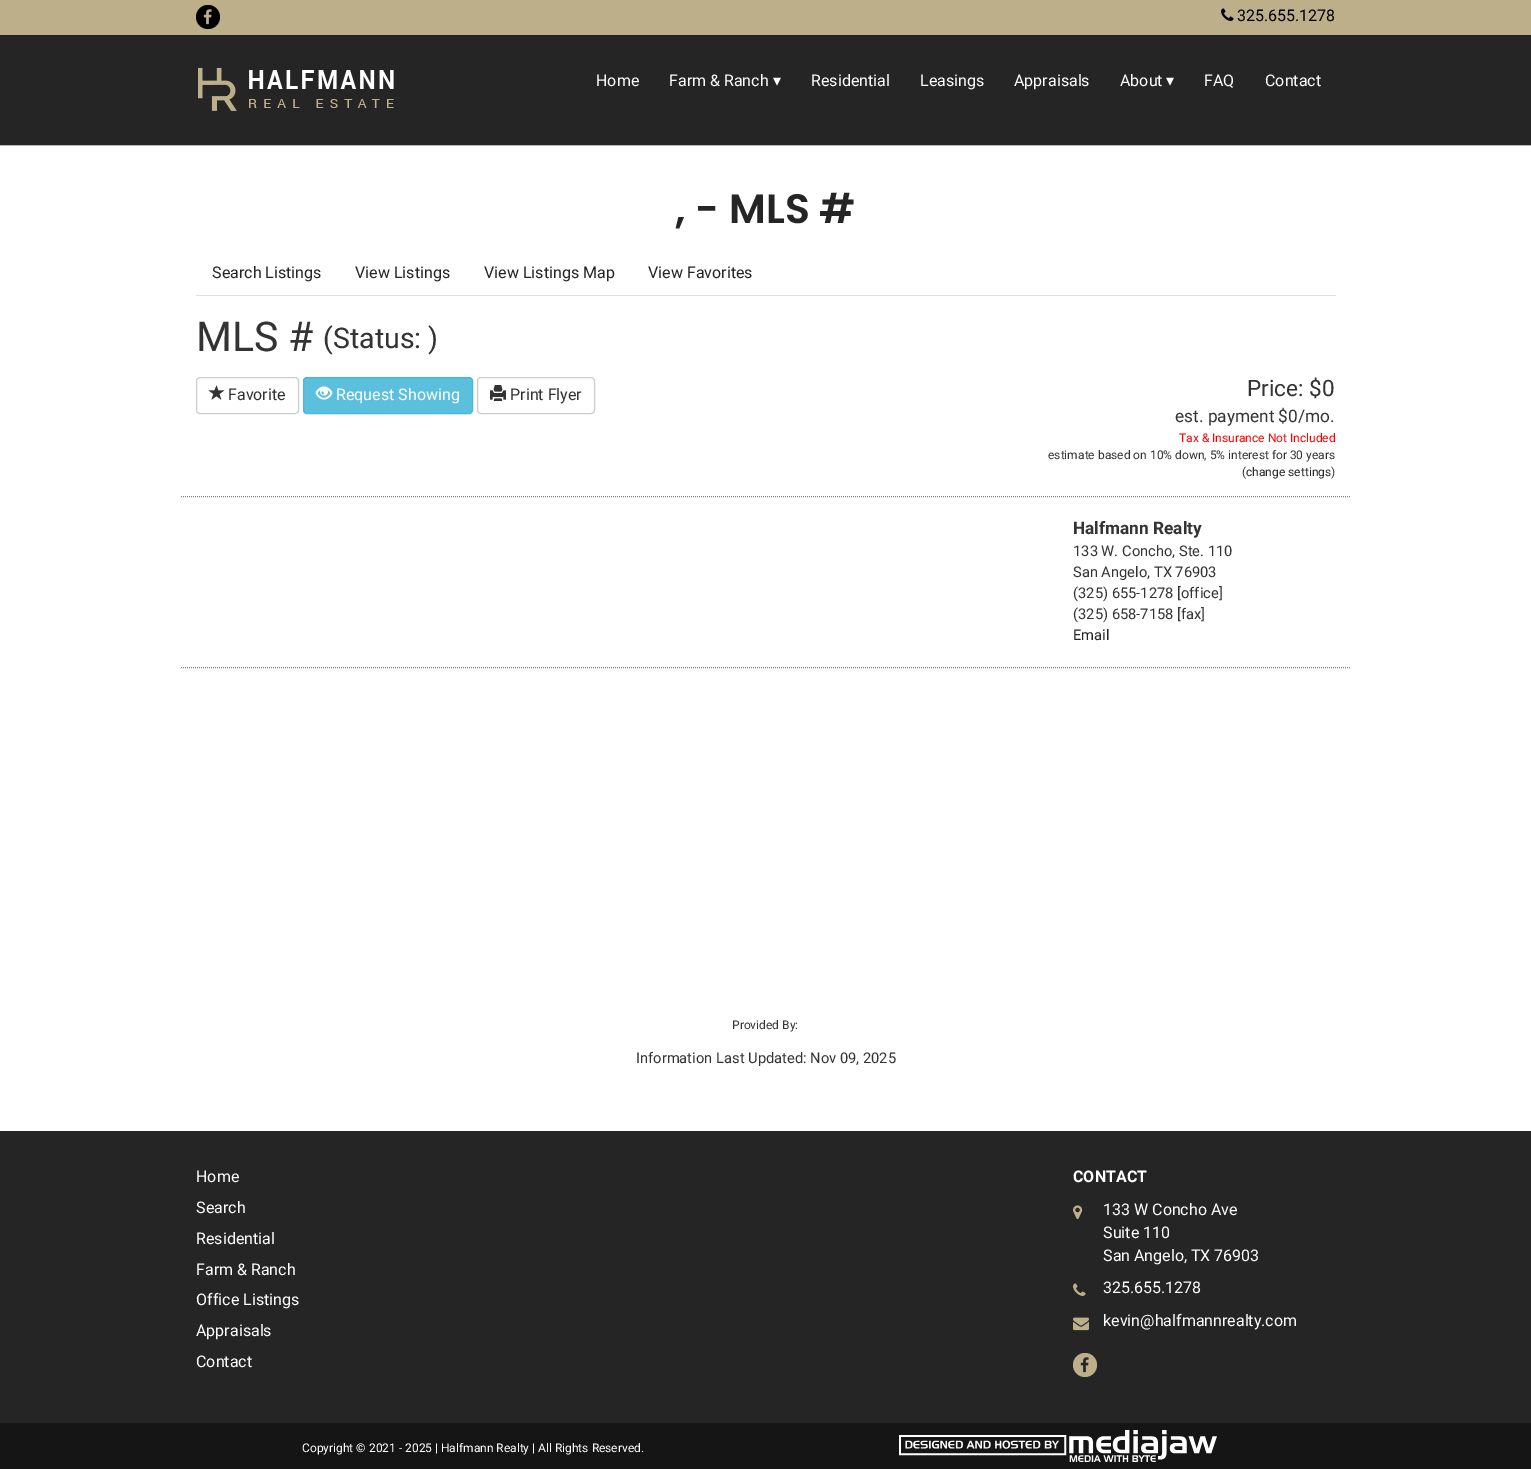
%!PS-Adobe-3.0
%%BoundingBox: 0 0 1531 1469
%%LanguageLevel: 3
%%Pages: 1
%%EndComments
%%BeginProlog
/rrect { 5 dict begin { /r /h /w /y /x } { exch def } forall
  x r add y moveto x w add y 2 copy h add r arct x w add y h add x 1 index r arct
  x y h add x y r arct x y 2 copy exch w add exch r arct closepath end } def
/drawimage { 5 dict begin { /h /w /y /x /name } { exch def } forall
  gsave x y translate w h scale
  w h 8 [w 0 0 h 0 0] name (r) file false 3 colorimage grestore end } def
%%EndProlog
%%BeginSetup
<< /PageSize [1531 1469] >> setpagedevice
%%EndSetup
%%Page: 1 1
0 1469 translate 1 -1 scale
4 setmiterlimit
1 setgray
0 0 1531 1469 rectfill
0.722 setgray
0 145 1531 1 rectfill
0.741 0.686 0.541 setrgbcolor
0 0 1531 35 rectfill
0 setgray
newpath 208 17 12 0 360 arc closepath fill
(images/1.raw) 203 9 9 16 drawimage
(images/2.raw) 1221 8 13 13 drawimage
0.145 0.145 0.149 setrgbcolor
0 35 1531 110 rectfill
(images/3.raw) 198 67 196 44 drawimage
0.867 setgray
196 295 1140 1 rectfill
0.8 setgray
196.5 377.5 102 36 3.5 rrect stroke
(images/4.raw) 208 385 17 15 drawimage
0.357 0.753 0.871 setrgbcolor
303.5 377.5 169 36 3.5 rrect gsave fill grestore
0.275 0.722 0.855 setrgbcolor
stroke
(images/5.raw) 315 386 18 14 drawimage
0.8 setgray
477.5 377.5 117 36 3.5 rrect stroke
(images/6.raw) 490 385 16 16 drawimage
0.502 setgray
[1 1] 0 setdash
newpath 181 496.5 moveto 1351 496.5 lineto stroke
newpath 181 667.5 moveto 1351 667.5 lineto stroke
0.145 0.145 0.149 setrgbcolor
0 1131 1531 292 rectfill
(images/7.raw) 1073 1205 10 15 drawimage
(images/8.raw) 1073 1283 13 13 drawimage
(images/9.raw) 1073 1317 16 14 drawimage
0.741 0.686 0.541 setrgbcolor
newpath 1085 1365 12 0 360 arc closepath fill
(images/10.raw) 1080 1357 9 16 drawimage
0.082 setgray
0 1423 1531 46 rectfill
(images/11.raw) 899 1430 318 32 drawimage
/Heebo-Regular [16 0 0 -16 0 0] selectfont
0 setgray
1237 21 moveto (325.655.1278) show
1 setgray
596 86 moveto (Home) show
669 86 moveto (Farm & Ranch) show
/DejaVuSans-Regular [16 0 0 -16 0 0] selectfont
773 86 moveto (▾) show
/Heebo-Regular [16 0 0 -16 0 0] selectfont
811 86 moveto (Residential) show
920 86 moveto (Leasings) show
1014 86 moveto (Appraisals) show
1120 86 moveto (About) show
/DejaVuSans-Regular [16 0 0 -16 0 0] selectfont
1166 86 moveto (▾) show
/Heebo-Regular [16 0 0 -16 0 0] selectfont
1204 86 moveto (FAQ) show
1265 86 moveto (Contact) show
/Poppins-SemiBold [41 0 0 -41 0 0] selectfont
0.145 0.145 0.149 setrgbcolor
675 223 moveto (, - MLS #) show
/Heebo-Regular [16 0 0 -16 0 0] selectfont
212 278 moveto (Search Listings) show
355 278 moveto (View Listings) show
484 278 moveto (View Listings Map) show
648 278 moveto (View Favorites) show
/Heebo-Regular [41 0 0 -41 0 0] selectfont
0.2 setgray
196 351 moveto (MLS #) show
/Heebo-Regular [28.5 0 0 -28.5 0 0] selectfont
323 348 moveto (\(Status: \)) show
/Heebo-Regular [16 0 0 -16 0 0] selectfont
228 400 moveto (Favorite) show
1 setgray
336 400 moveto (Request Showing) show
0.2 setgray
510 400 moveto (Print Flyer) show
/Heebo-Regular [22.5 0 0 -22.5 0 0] selectfont
1247 396 moveto (Price: $0) show
/Heebo-Regular [17.25 0 0 -17.25 0 0] selectfont
1175 422 moveto (est. payment $0/mo.) show
/Heebo-Regular [12 0 0 -12 0 0] selectfont
1 0 0 setrgbcolor
1179 442 moveto (Tax & Insurance Not Included) show
0.2 setgray
1048 459 moveto (estimate based on 10% down, 5% interest for 30 years) show
1242 476 moveto (\() show
0.145 0.145 0.149 setrgbcolor
1246 476 moveto (change settings) show
0.2 setgray
1331 476 moveto (\)) show
/Heebo-Bold [17.25 0 0 -17.25 0 0] selectfont
1073 534 moveto (Halfmann Realty) show
/Heebo-Regular [14.7 0 0 -14.7 0 0] selectfont
1073 556 moveto (133 W. Concho, Ste. 110) show
1073 577 moveto (San Angelo, TX 76903) show
1073 598 moveto (\(325\) 655-1278 [office]) show
1073 619 moveto (\(325\) 658-7158 [fax]) show
0.145 0.145 0.149 setrgbcolor
1073 640 moveto (Email) show
/Heebo-Regular [12 0 0 -12 0 0] selectfont
0.2 setgray
732 1029 moveto (Provided By:) show
/Heebo-Regular [14.7 0 0 -14.7 0 0] selectfont
636 1063 moveto (Information Last Updated: Nov 09, 2025) show
/Heebo-Regular [16 0 0 -16 0 0] selectfont
1 setgray
196 1182 moveto (Home) show
196 1213 moveto (Search) show
196 1244 moveto (Residential) show
196 1275 moveto (Farm & Ranch) show
196 1305 moveto (Office Listings) show
196 1336 moveto (Appraisals) show
196 1367 moveto (Contact) show
/Heebo-Bold [16 0 0 -16 0 0] selectfont
1073 1182 moveto (CONTACT) show
/Heebo-Regular [16 0 0 -16 0 0] selectfont
1103 1215 moveto (133 W Concho Ave) show
1103 1238 moveto (Suite 110) show
1103 1261 moveto (San Angelo, TX 76903) show
1103 1293 moveto (325.655.1278) show
1103 1326 moveto (kevin@halfmannrealty.com) show
/Heebo-Regular [12 0 0 -12 0 0] selectfont
302 1452 moveto (Copyright © 2021 - 2025 | Halfmann Realty | All Rights Reserved.) show
showpage
%%EOF
